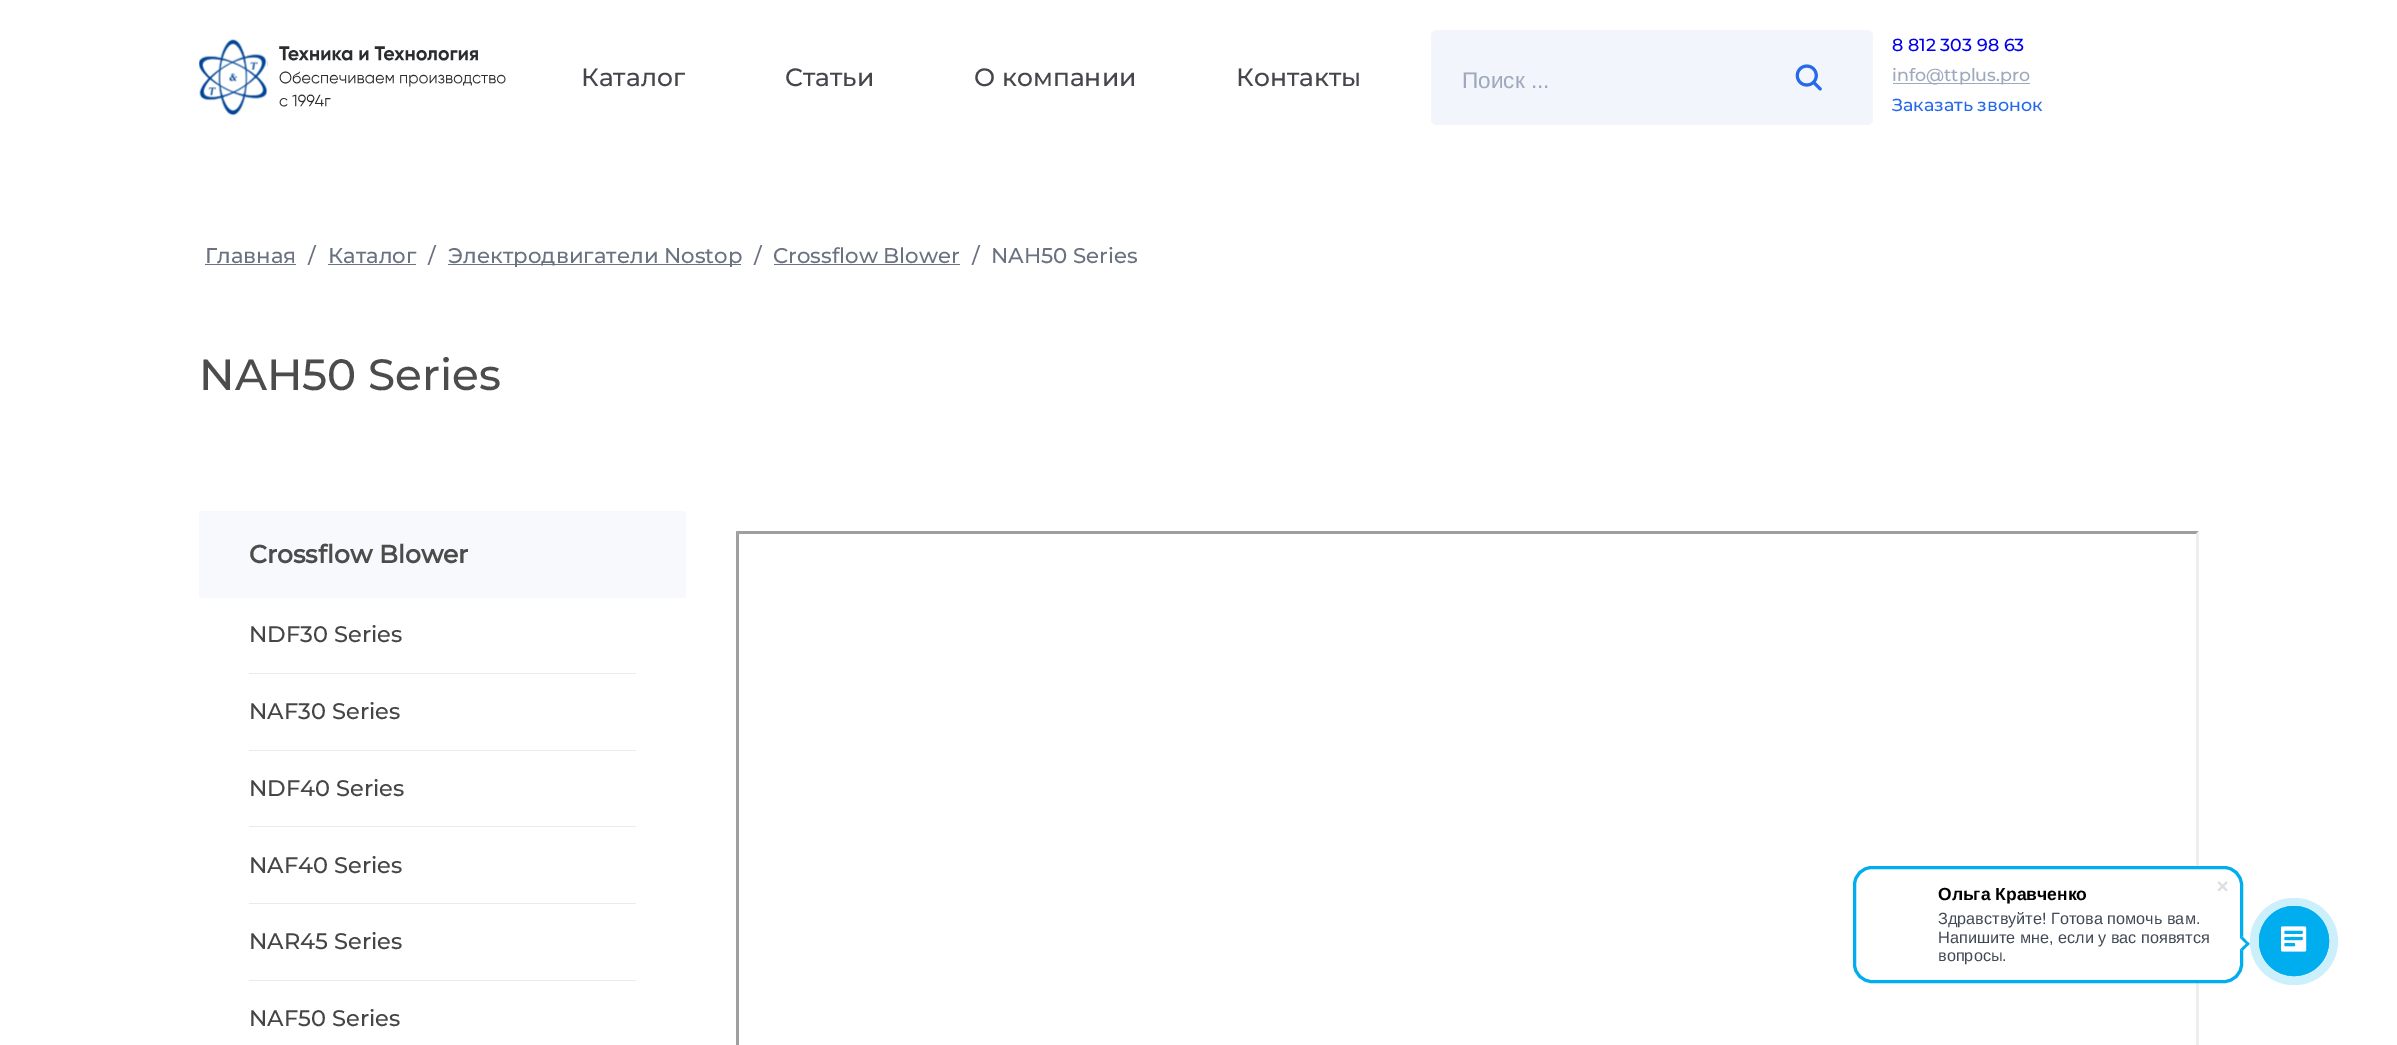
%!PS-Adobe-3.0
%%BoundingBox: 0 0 2397 1045
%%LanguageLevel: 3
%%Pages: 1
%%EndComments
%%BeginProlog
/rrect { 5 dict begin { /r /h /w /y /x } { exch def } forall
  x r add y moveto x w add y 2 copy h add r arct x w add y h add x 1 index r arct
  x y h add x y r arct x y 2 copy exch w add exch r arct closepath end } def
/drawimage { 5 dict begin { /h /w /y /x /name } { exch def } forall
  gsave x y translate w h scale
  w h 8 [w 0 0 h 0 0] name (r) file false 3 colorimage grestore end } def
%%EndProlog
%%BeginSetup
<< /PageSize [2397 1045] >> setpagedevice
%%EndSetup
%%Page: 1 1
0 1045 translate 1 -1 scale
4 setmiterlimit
1 setgray
0 0 2397 1045 rectfill
(images/1.raw) 199 39 307 77 drawimage
0.949 0.961 0.984 setrgbcolor
1431 30 442 95 6 rrect fill
(images/2.raw) 1795 64 27 27 drawimage
0.62 0.663 0.741 setrgbcolor
1893 83 137 1 rectfill
0.416 0.447 0.506 setrgbcolor
205 264 91 1 rectfill
328 264 88 1 rectfill
448 264 293 1 rectfill
774 264 186 1 rectfill
0.969 0.976 0.988 setrgbcolor
199 511 487 87 rectfill
0.914 0.922 0.949 setrgbcolor
249 673 387 1 rectfill
249 750 387 1 rectfill
249 826 387 1 rectfill
249 903 387 1 rectfill
249 980 387 1 rectfill
0.624 setgray
newpath 736 531 moveto 2199 531 lineto 2196 534 lineto 739 534 lineto closepath fill
newpath 736 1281 moveto 736 531 lineto 739 534 lineto 739 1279 lineto closepath fill
0.933 setgray
newpath 2199 531 moveto 2199 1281 lineto 2196 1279 lineto 2196 534 lineto closepath fill
1 setgray
1854.5 867.5 387 114 17.5 rrect gsave fill grestore
0 0.682 0.937 setrgbcolor
3 setlinewidth
stroke
(images/3.raw) 2217 881 11 11 drawimage
1 setgray
newpath 2235.5 944 moveto 2242.5 936.5 lineto 2249.5 944 lineto 2242.5 951 lineto closepath fill
0 0.682 0.937 setrgbcolor
newpath 2240.5 938.5 moveto 2242.5 936.5 lineto 2249.5 944 lineto 2248 945.5 lineto closepath fill
newpath 2240.5 949 moveto 2248 942 lineto 2249.5 944 lineto 2242.5 951 lineto closepath fill
0.8 0.937 0.988 setrgbcolor
2250 898 88 87 43.5 rrect fill
0 0.682 0.937 setrgbcolor
1 setlinewidth
newpath 2294 941 34.5 0 360 arc closepath stroke
newpath 2294 941 35 0 360 arc closepath fill
(images/4.raw) 2281 926 26 26 drawimage
/Montserrat-Thin [25 0 0 -25 0 0] selectfont
0.271 0.275 0.294 setrgbcolor
581 86 moveto (Каталог) show
785 86 moveto (Статьи) show
974 86 moveto (О компании) show
1236 86 moveto (Контакты) show
/LiberationSans-Regular [22.5 0 0 -22.5 0 0] selectfont
0.62 0.663 0.741 setrgbcolor
1462 88 moveto (Поиск ...) show
/Montserrat-Thin [17.5 0 0 -17.5 0 0] selectfont
0 0 0.933 setrgbcolor
1892 51 moveto (8 812 303 98 63) show
0.62 0.663 0.741 setrgbcolor
1892 81 moveto (info@ttplus.pro) show
0.141 0.408 0.922 setrgbcolor
1892 111 moveto (Заказать звонок) show
/Montserrat-Thin [21.25 0 0 -21.25 0 0] selectfont
0.416 0.447 0.506 setrgbcolor
205 263 moveto (Главная) show
308 263 moveto (/) show
328 263 moveto (Каталог) show
428 263 moveto (/) show
448 263 moveto (Электродвигатели Nostop) show
754 263 moveto (/) show
773 263 moveto (Crossflow Blower) show
972 263 moveto (/) show
991 263 moveto (NAH50 Series) show
/Montserrat-Thin [43.75 0 0 -43.75 0 0] selectfont
0.302 0.298 0.298 setrgbcolor
199 390 moveto (NAH50 Series) show
/Montserrat-Bold [25 0 0 -25 0 0] selectfont
249 563 moveto (Crossflow Blower) show
/Montserrat-Thin [22.5 0 0 -22.5 0 0] selectfont
0.271 setgray
249 642 moveto (NDF30 Series) show
249 719 moveto (NAF30 Series) show
249 796 moveto (NDF40 Series) show
249 873 moveto (NAF40 Series) show
249 949 moveto (NAR45 Series) show
249 1026 moveto (NAF50 Series) show
/LiberationSans-Bold [17.5 0 0 -17.5 0 0] selectfont
0 setgray
1938 900 moveto (Ольга Кравченко) show
/LiberationSans-Regular [16.25 0 0 -16.25 0 0] selectfont
0.259 0.286 0.337 setrgbcolor
1938 924 moveto (Здравствуйте! Готова помочь вам.) show
1938 943 moveto (Напишите мне, если у вас появятся) show
1938 961 moveto (вопросы.) show
showpage
%%EOF
